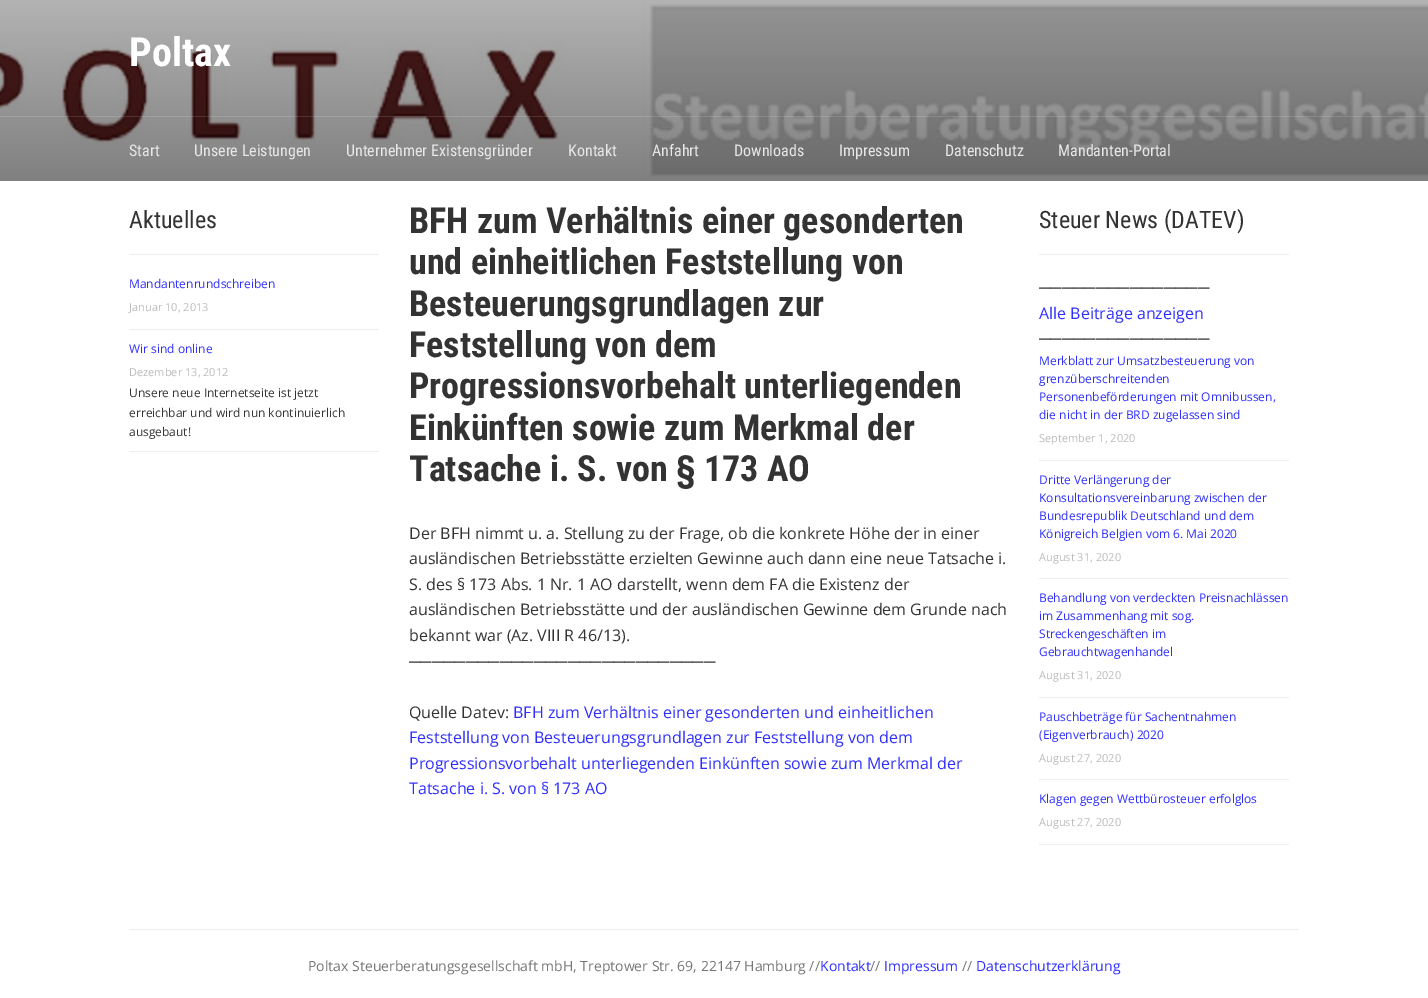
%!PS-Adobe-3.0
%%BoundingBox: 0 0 1428 998
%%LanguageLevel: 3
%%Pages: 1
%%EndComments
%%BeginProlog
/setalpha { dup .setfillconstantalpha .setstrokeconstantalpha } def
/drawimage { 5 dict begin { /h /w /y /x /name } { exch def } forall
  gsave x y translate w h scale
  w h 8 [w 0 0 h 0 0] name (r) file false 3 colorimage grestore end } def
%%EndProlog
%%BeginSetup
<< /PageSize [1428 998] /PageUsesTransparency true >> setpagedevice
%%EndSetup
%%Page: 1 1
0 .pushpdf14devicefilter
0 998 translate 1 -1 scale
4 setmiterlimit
1 setgray
0 0 1428 998 rectfill
(images/1.raw) 0 0 1428 181 drawimage
0.13 setalpha
0 116 1428 1 rectfill
1 setalpha
0.933 setgray
129 254 250 1 rectfill
129 329 250 1 rectfill
129 451 250 1 rectfill
1039 254 250 1 rectfill
1039 460 250 1 rectfill
1039 578 250 1 rectfill
1039 697 250 1 rectfill
1039 779 250 1 rectfill
1039 844 250 1 rectfill
129 929 1170 1 rectfill
/RobotoCondensed-Bold [40 0 0 -40 0 0] selectfont
1 setgray
129 66 moveto (Poltax) show
/RobotoCondensed-Regular [16 0 0 -16 0 0] selectfont
0.906 setgray
129 156 moveto (Start) show
194 156 moveto (Unsere Leistungen) show
346 156 moveto (Unternehmer Existensgründer) show
568 156 moveto (Kontakt) show
652 156 moveto (Anfahrt) show
734 156 moveto (Downloads) show
839 156 moveto (Impressum) show
945 156 moveto (Datenschutz) show
1058 156 moveto (Mandanten-Portal) show
/RobotoCondensed-Regular [24 0 0 -24 0 0] selectfont
0.2 setgray
129 228 moveto (Aktuelles) show
/OpenSans-Regular [12 0 0 -12 0 0] selectfont
0.18 0.18 0.996 setrgbcolor
129 288 moveto (Mandantenrundschreiben) show
/OpenSans-Regular [11 0 0 -11 0 0] selectfont
0.733 setgray
129 311 moveto (Januar 10, 2013) show
/OpenSans-Regular [12 0 0 -12 0 0] selectfont
0.18 0.18 0.996 setrgbcolor
129 353 moveto (Wir sind online) show
/OpenSans-Regular [11 0 0 -11 0 0] selectfont
0.733 setgray
129 376 moveto (Dezember 13, 2012) show
/OpenSans-Regular [12 0 0 -12 0 0] selectfont
0.2 setgray
129 397 moveto (Unsere neue Internetseite ist jetzt) show
129 417 moveto (erreichbar und wird nun kontinuierlich) show
129 436 moveto (ausgebaut!) show
/RobotoCondensed-Bold [36 0 0 -36 0 0] selectfont
409 233 moveto (BFH zum Verhältnis einer gesonderten) show
409 274 moveto (und einheitlichen Feststellung von) show
409 316 moveto (Besteuerungsgrundlagen zur) show
409 357 moveto (Feststellung von dem) show
409 398 moveto (Progressionsvorbehalt unterliegenden) show
409 440 moveto (Einkünften sowie zum Merkmal der) show
409 481 moveto (Tatsache i. S. von § 173 AO) show
/OpenSans-Regular [16 0 0 -16 0 0] selectfont
409 539 moveto (Der BFH nimmt u. a. Stellung zu der Frage, ob die konkrete Höhe der in einer) show
409 564 moveto (ausländischen Betriebsstätte erzielten Gewinne auch dann eine neue Tatsache i.) show
409 590 moveto (S. des § 173 Abs. 1 Nr. 1 AO darstellt, wenn dem FA die Existenz der) show
409 615 moveto (ausländischen Betriebsstätte und der ausländischen Gewinne dem Grunde nach) show
409 641 moveto (bekannt war \(Az. VIII R 46/13\).) show
/LiberationSans-Regular [16 0 0 -16 0 0] selectfont
409 667 moveto (───────────────────────────) show
/OpenSans-Regular [16 0 0 -16 0 0] selectfont
409 718 moveto (Quelle Datev:) show
0.18 0.18 0.996 setrgbcolor
513 718 moveto (BFH zum Verhältnis einer gesonderten und einheitlichen) show
409 743 moveto (Feststellung von Besteuerungsgrundlagen zur Feststellung von dem) show
409 769 moveto (Progressionsvorbehalt unterliegenden Einkünften sowie zum Merkmal der) show
409 794 moveto (Tatsache i. S. von § 173 AO) show
/RobotoCondensed-Regular [24 0 0 -24 0 0] selectfont
0.2 setgray
1039 228 moveto (Steuer News \(DATEV\)) show
/LiberationSans-Regular [16 0 0 -16 0 0] selectfont
1039 293 moveto (───────────────) show
/OpenSans-Regular [16 0 0 -16 0 0] selectfont
0.18 0.18 0.996 setrgbcolor
1039 319 moveto (Alle Beiträge anzeigen) show
/LiberationSans-Regular [16 0 0 -16 0 0] selectfont
0.2 setgray
1039 344 moveto (───────────────) show
/OpenSans-Regular [12 0 0 -12 0 0] selectfont
0.18 0.18 0.996 setrgbcolor
1039 365 moveto (Merkblatt zur Umsatzbesteuerung von) show
1039 383 moveto (grenzüberschreitenden) show
1039 401 moveto (Personenbeförderungen mit Omnibussen,) show
1039 419 moveto (die nicht in der BRD zugelassen sind) show
/OpenSans-Regular [11 0 0 -11 0 0] selectfont
0.733 setgray
1039 442 moveto (September 1, 2020) show
/OpenSans-Regular [12 0 0 -12 0 0] selectfont
0.18 0.18 0.996 setrgbcolor
1039 484 moveto (Dritte Verlängerung der) show
1039 502 moveto (Konsultationsvereinbarung zwischen der) show
1039 520 moveto (Bundesrepublik Deutschland und dem) show
1039 538 moveto (Königreich Belgien vom 6. Mai 2020) show
/OpenSans-Regular [11 0 0 -11 0 0] selectfont
0.733 setgray
1039 561 moveto (August 31, 2020) show
/OpenSans-Regular [12 0 0 -12 0 0] selectfont
0.18 0.18 0.996 setrgbcolor
1039 602 moveto (Behandlung von verdeckten Preisnachlässen) show
1039 620 moveto (im Zusammenhang mit sog.) show
1039 638 moveto (Streckengeschäften im) show
1039 656 moveto (Gebrauchtwagenhandel) show
/OpenSans-Regular [11 0 0 -11 0 0] selectfont
0.733 setgray
1039 679 moveto (August 31, 2020) show
/OpenSans-Regular [12 0 0 -12 0 0] selectfont
0.18 0.18 0.996 setrgbcolor
1039 721 moveto (Pauschbeträge für Sachentnahmen) show
1039 739 moveto (\(Eigenverbrauch\) 2020) show
/OpenSans-Regular [11 0 0 -11 0 0] selectfont
0.733 setgray
1039 762 moveto (August 27, 2020) show
/OpenSans-Regular [12 0 0 -12 0 0] selectfont
0.18 0.18 0.996 setrgbcolor
1039 803 moveto (Klagen gegen Wettbürosteuer erfolglos) show
/OpenSans-Regular [11 0 0 -11 0 0] selectfont
0.733 setgray
1039 826 moveto (August 27, 2020) show
/OpenSans-Regular [14 0 0 -14 0 0] selectfont
0.467 setgray
308 971 moveto (Poltax Steuerberatungsgesellschaft mbH, Treptower Str. 69, 22147 Hamburg //) show
0.18 0.18 0.996 setrgbcolor
820 971 moveto (Kontakt) show
0.467 setgray
870 971 moveto (//) show
0.18 0.18 0.996 setrgbcolor
884 971 moveto (Impressum) show
0.467 setgray
962 971 moveto (//) show
0.18 0.18 0.996 setrgbcolor
976 971 moveto (Datenschutzerklärung) show
.poppdf14devicefilter showpage
%%EOF
